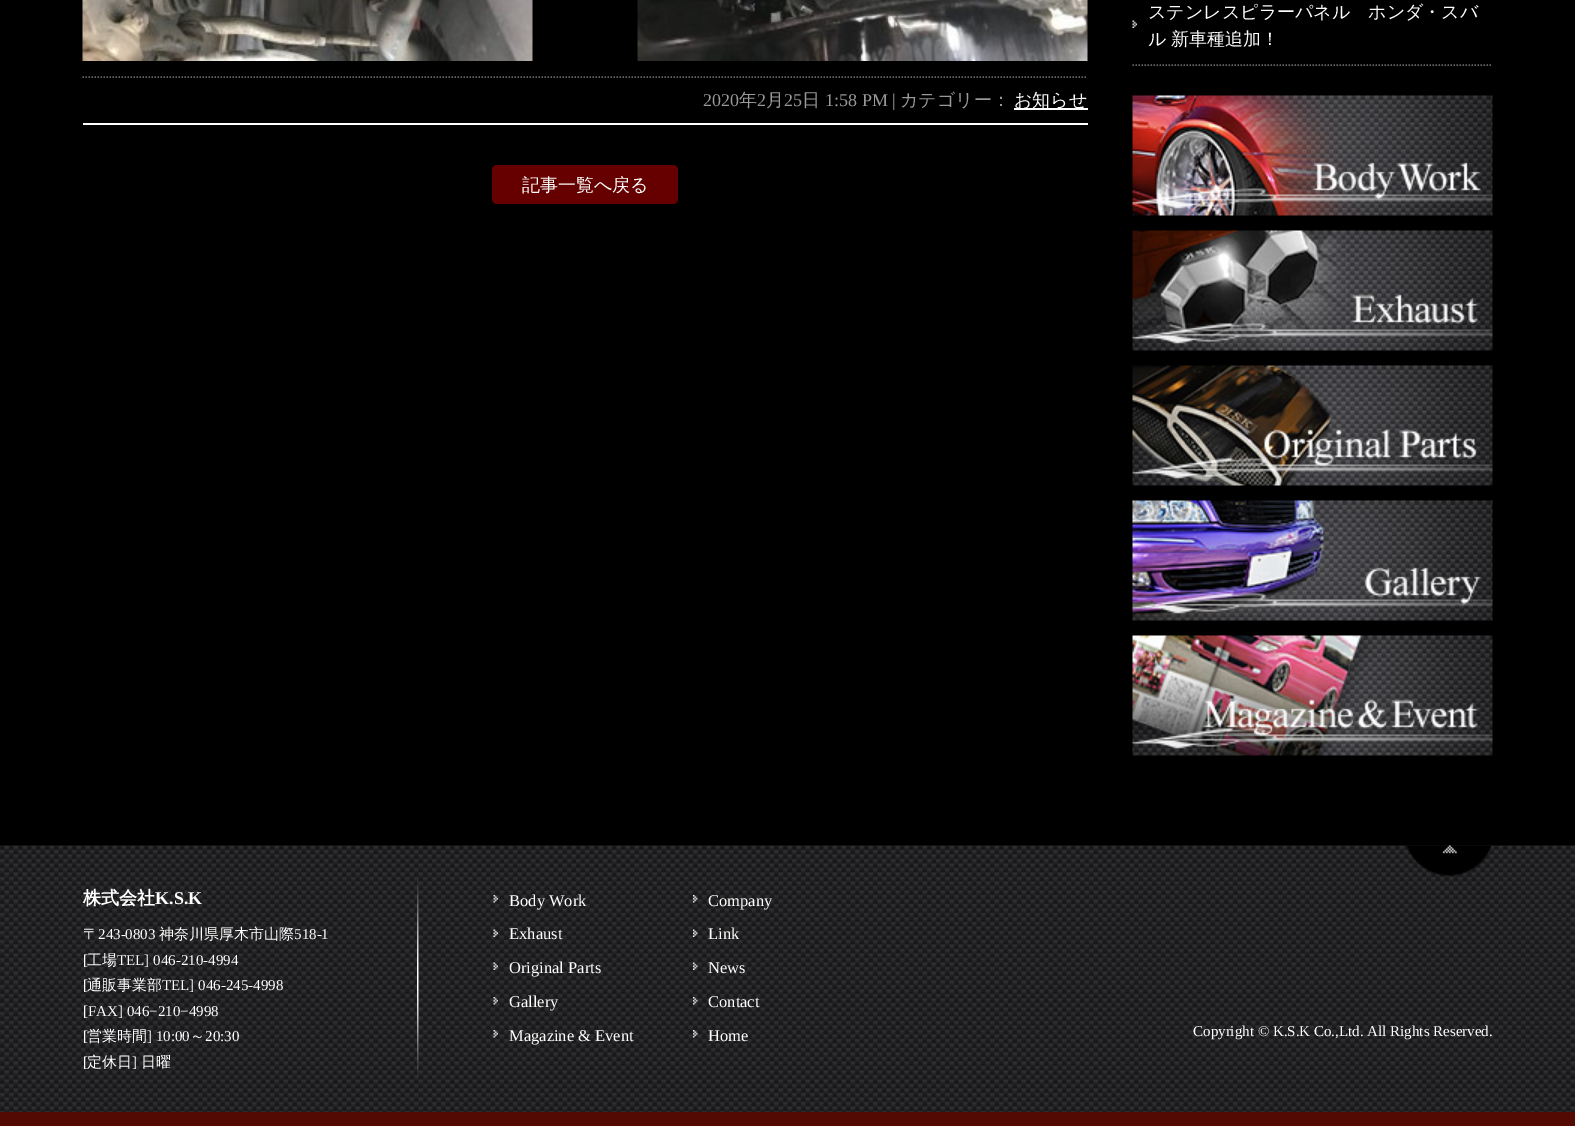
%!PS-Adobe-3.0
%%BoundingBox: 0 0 1575 1126
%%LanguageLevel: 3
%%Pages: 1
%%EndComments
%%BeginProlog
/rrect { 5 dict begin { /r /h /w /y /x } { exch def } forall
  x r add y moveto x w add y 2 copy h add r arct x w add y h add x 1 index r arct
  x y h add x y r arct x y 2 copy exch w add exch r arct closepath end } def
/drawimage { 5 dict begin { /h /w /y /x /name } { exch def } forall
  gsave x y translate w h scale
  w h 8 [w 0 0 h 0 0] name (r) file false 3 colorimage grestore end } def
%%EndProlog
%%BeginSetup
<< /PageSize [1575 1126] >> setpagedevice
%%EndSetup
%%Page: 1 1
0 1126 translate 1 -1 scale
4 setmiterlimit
0 setgray
0 0 1575 1126 rectfill
0.4 setgray
1.5 setlinewidth
[1.5 1.5] 0 setdash
newpath 1132.5 65 moveto 1492.5 65 lineto stroke
(images/1.raw) 1132 20 5 8 drawimage
(images/2.raw) 1132 95 361 121 drawimage
(images/3.raw) 1132 230 361 121 drawimage
(images/4.raw) 1132 365 361 121 drawimage
(images/5.raw) 1132 500 361 121 drawimage
(images/6.raw) 1132 635 361 121 drawimage
(images/7.raw) 82 0 451 61 drawimage
(images/8.raw) 637 0 451 61 drawimage
newpath 82.5 77 moveto 1087.5 77 lineto stroke
1 setgray
83 123 1005 2 rectfill
1014 108 74 2 rectfill
0.4 0 0 setrgbcolor
492 165 186 39 5 rrect fill
(images/9.raw) 0 845 1575 267 drawimage
0.325 0.039 0.012 setrgbcolor
0 1112 1575 14 rectfill
(images/10.raw) 1406 845 86 31 drawimage
(images/11.raw) 417 878 2 201 drawimage
(images/12.raw) 493 895 5 8 drawimage
(images/13.raw) 493 929 5 8 drawimage
(images/14.raw) 493 962 5 8 drawimage
(images/15.raw) 493 997 5 8 drawimage
(images/12.raw) 493 1030 5 8 drawimage
(images/16.raw) 693 895 5 8 drawimage
(images/17.raw) 693 929 5 8 drawimage
(images/18.raw) 693 962 5 8 drawimage
(images/19.raw) 693 997 5 8 drawimage
(images/16.raw) 693 1030 5 8 drawimage
/WenQuanYiZenHei-Medium [18 0 0 -18 0 0] selectfont
1 setgray
1148 18 moveto (ステンレスピラーパネル　ホンダ・スバ) show
1148 45 moveto -1 0 32 (ル 新車種追加！) widthshow
/LiberationSerif-Regular [18 0 0 -18 0 0] selectfont
0.6 setgray
703 106 moveto (2020) show
/WenQuanYiZenHei-Medium [18 0 0 -18 0 0] selectfont
739 106 moveto (年) show
/LiberationSerif-Regular [18 0 0 -18 0 0] selectfont
757 106 moveto (2) show
/WenQuanYiZenHei-Medium [18 0 0 -18 0 0] selectfont
766 106 moveto (月) show
/LiberationSerif-Regular [18 0 0 -18 0 0] selectfont
784 106 moveto (25) show
/WenQuanYiZenHei-Medium [18 0 0 -18 0 0] selectfont
802 106 moveto (日) show
/LiberationSerif-Regular [18 0 0 -18 0 0] selectfont
825 106 moveto (1:58 PM |) show
/WenQuanYiZenHei-Medium [18 0 0 -18 0 0] selectfont
900 106 moveto (カテゴリー：) show
1 setgray
1014 106 moveto (お知らせ) show
522 191 moveto (記事一覧へ戻る) show
/WenQuanYiZenHei-Bold [18 0 0 -18 0 0] selectfont
83 904 moveto (株式会社) show
/LiberationSerif-Bold [18 0 0 -18 0 0] selectfont
155 904 moveto (K.S.K) show
/WenQuanYiZenHei-Medium [15 0 0 -15 0 0] selectfont
83 939 moveto (〒) show
/LiberationSerif-Regular [15 0 0 -15 0 0] selectfont
98 939 moveto (243-0803) show
/WenQuanYiZenHei-Medium [15 0 0 -15 0 0] selectfont
159 939 moveto (神奈川県厚木市山際) show
/LiberationSerif-Regular [15 0 0 -15 0 0] selectfont
294 939 moveto (518-1) show
83 965 moveto ([) show
/WenQuanYiZenHei-Medium [15 0 0 -15 0 0] selectfont
87 965 moveto (工場) show
/LiberationSerif-Regular [15 0 0 -15 0 0] selectfont
117 965 moveto (TEL] 046-210-4994) show
83 990 moveto ([) show
/WenQuanYiZenHei-Medium [15 0 0 -15 0 0] selectfont
87 990 moveto (通販事業部) show
/LiberationSerif-Regular [15 0 0 -15 0 0] selectfont
162 990 moveto (TEL] 046-245-4998) show
83 1016 moveto ([FAX] 046−210−4998) show
83 1041 moveto ([) show
/WenQuanYiZenHei-Medium [15 0 0 -15 0 0] selectfont
87 1041 moveto (営業時間) show
/LiberationSerif-Regular [15 0 0 -15 0 0] selectfont
147 1041 moveto (] 10:00) show
/WenQuanYiZenHei-Medium [15 0 0 -15 0 0] selectfont
190 1041 moveto (～) show
/LiberationSerif-Regular [15 0 0 -15 0 0] selectfont
205 1041 moveto (20:30) show
83 1067 moveto ([) show
/WenQuanYiZenHei-Medium [15 0 0 -15 0 0] selectfont
87 1067 moveto (定休日) show
/LiberationSerif-Regular [15 0 0 -15 0 0] selectfont
132 1067 moveto (]) show
/WenQuanYiZenHei-Medium [15 0 0 -15 0 0] selectfont
141 1067 moveto (日曜) show
/LiberationSerif-Regular [16.5 0 0 -16.5 0 0] selectfont
509 906 moveto (Body Work) show
509 939 moveto (Exhaust) show
509 973 moveto (Original Parts) show
509 1007 moveto (Gallery) show
509 1041 moveto (Magazine & Event) show
708 906 moveto (Company) show
708 939 moveto (Link) show
708 973 moveto (News) show
708 1007 moveto (Contact) show
708 1041 moveto (Home) show
/LiberationSerif-Regular [15 0 0 -15 0 0] selectfont
1193 1036 moveto (Copyright © K.S.K Co.,Ltd. All Rights Reserved.) show
showpage
%%EOF
